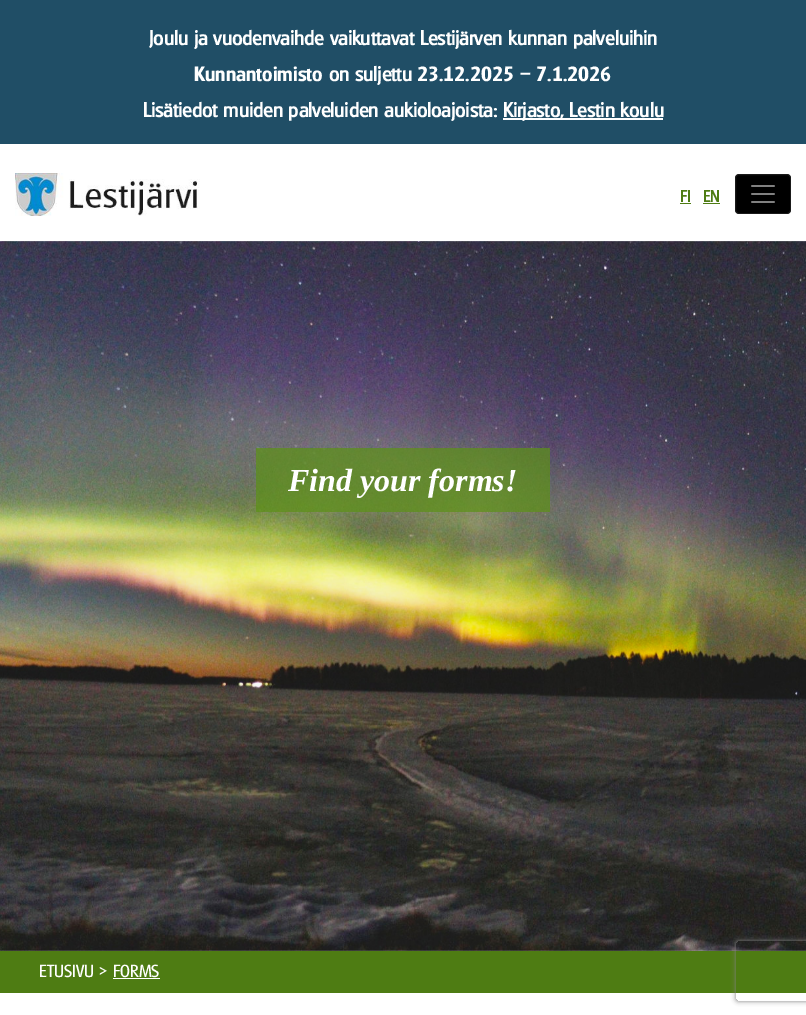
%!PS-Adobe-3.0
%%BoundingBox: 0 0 806 1015
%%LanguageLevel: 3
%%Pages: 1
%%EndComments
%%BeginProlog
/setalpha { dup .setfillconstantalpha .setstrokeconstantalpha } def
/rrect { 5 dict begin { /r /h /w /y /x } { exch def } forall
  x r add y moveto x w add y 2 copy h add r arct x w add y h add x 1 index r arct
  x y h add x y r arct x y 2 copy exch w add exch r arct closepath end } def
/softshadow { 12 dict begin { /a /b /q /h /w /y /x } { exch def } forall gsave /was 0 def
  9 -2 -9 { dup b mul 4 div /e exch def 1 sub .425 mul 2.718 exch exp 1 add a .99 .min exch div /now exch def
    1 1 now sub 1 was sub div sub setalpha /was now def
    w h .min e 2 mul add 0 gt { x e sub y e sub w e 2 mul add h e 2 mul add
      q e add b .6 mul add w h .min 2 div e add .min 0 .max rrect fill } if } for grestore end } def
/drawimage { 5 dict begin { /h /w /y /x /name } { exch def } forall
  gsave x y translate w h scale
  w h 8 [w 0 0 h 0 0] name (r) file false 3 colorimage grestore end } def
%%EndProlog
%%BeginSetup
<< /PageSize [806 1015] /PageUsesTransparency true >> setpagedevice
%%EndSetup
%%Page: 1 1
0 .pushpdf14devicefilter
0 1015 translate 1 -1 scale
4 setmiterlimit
1 setgray
0 0 806 1015 rectfill
0.125 0.306 0.4 setrgbcolor
0 0 806 144 rectfill
1 setgray
503 118 160 2 rectfill
(images/1.raw) 15 173 185 43 drawimage
0.306 0.486 0.075 setrgbcolor
680 203 11 1 rectfill
703 203 17 1 rectfill
0 setgray
735 174 56 40 4 rrect fill
0.1 setalpha
1 setgray
735.5 174.5 55 39 3.5 rrect stroke
1 setalpha
(images/2.raw) 751 185 24 18 drawimage
(images/3.raw) 0 241 806 710 drawimage
0.7 setalpha
0.361 0.569 0.086 setrgbcolor
256 448 294 64 rectfill
1 setalpha
0.306 0.486 0.075 setrgbcolor
0 951 806 42 rectfill
1 setgray
113 978 47 1 rectfill
gsave
newpath 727 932 moveto 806 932 lineto 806 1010 lineto 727 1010 lineto closepath 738 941 moveto 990 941 lineto 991 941 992 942 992 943 curveto 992 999 lineto 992 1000 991 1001 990 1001 curveto 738 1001 lineto 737 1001 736 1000 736 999 curveto 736 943 lineto 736 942 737 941 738 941 curveto closepath eoclip newpath
0.502 setgray
736 941 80 60 2 2.5 1 softshadow
grestore
/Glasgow-Bold [20 0 0 -20 0 0] selectfont
149 45 moveto (Joulu ja vuodenvaihde vaikuttavat Lestijärven kunnan palveluihin) show
/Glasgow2-Bold [20 0 0 -20 0 0] selectfont
194 81 moveto (Kunnantoimisto) show
/Glasgow-Bold [20 0 0 -20 0 0] selectfont
329 81 moveto (on suljettu) show
/Glasgow2-Bold [20 0 0 -20 0 0] selectfont
417 81 moveto (23.12.2025 – 7.1.2026) show
/Glasgow-Bold [20 0 0 -20 0 0] selectfont
143 117 moveto (Lisätiedot muiden palveluiden aukioloajoista:) show
503 117 moveto (Kirjasto, Lestin koulu) show
/Glasgow-Bold [16 0 0 -16 0 0] selectfont
0.306 0.486 0.075 setrgbcolor
680 202 moveto (FI) show
703 202 moveto (EN) show
/Tinos-BoldItalic [32 0 0 -32 0 0] selectfont
1 setgray
288 491 moveto (Find your forms!) show
/Glasgow-Regular [17 0 0 -17 0 0] selectfont
39 977 moveto (ETUSIVU > FORMS) show
.poppdf14devicefilter showpage
%%EOF
